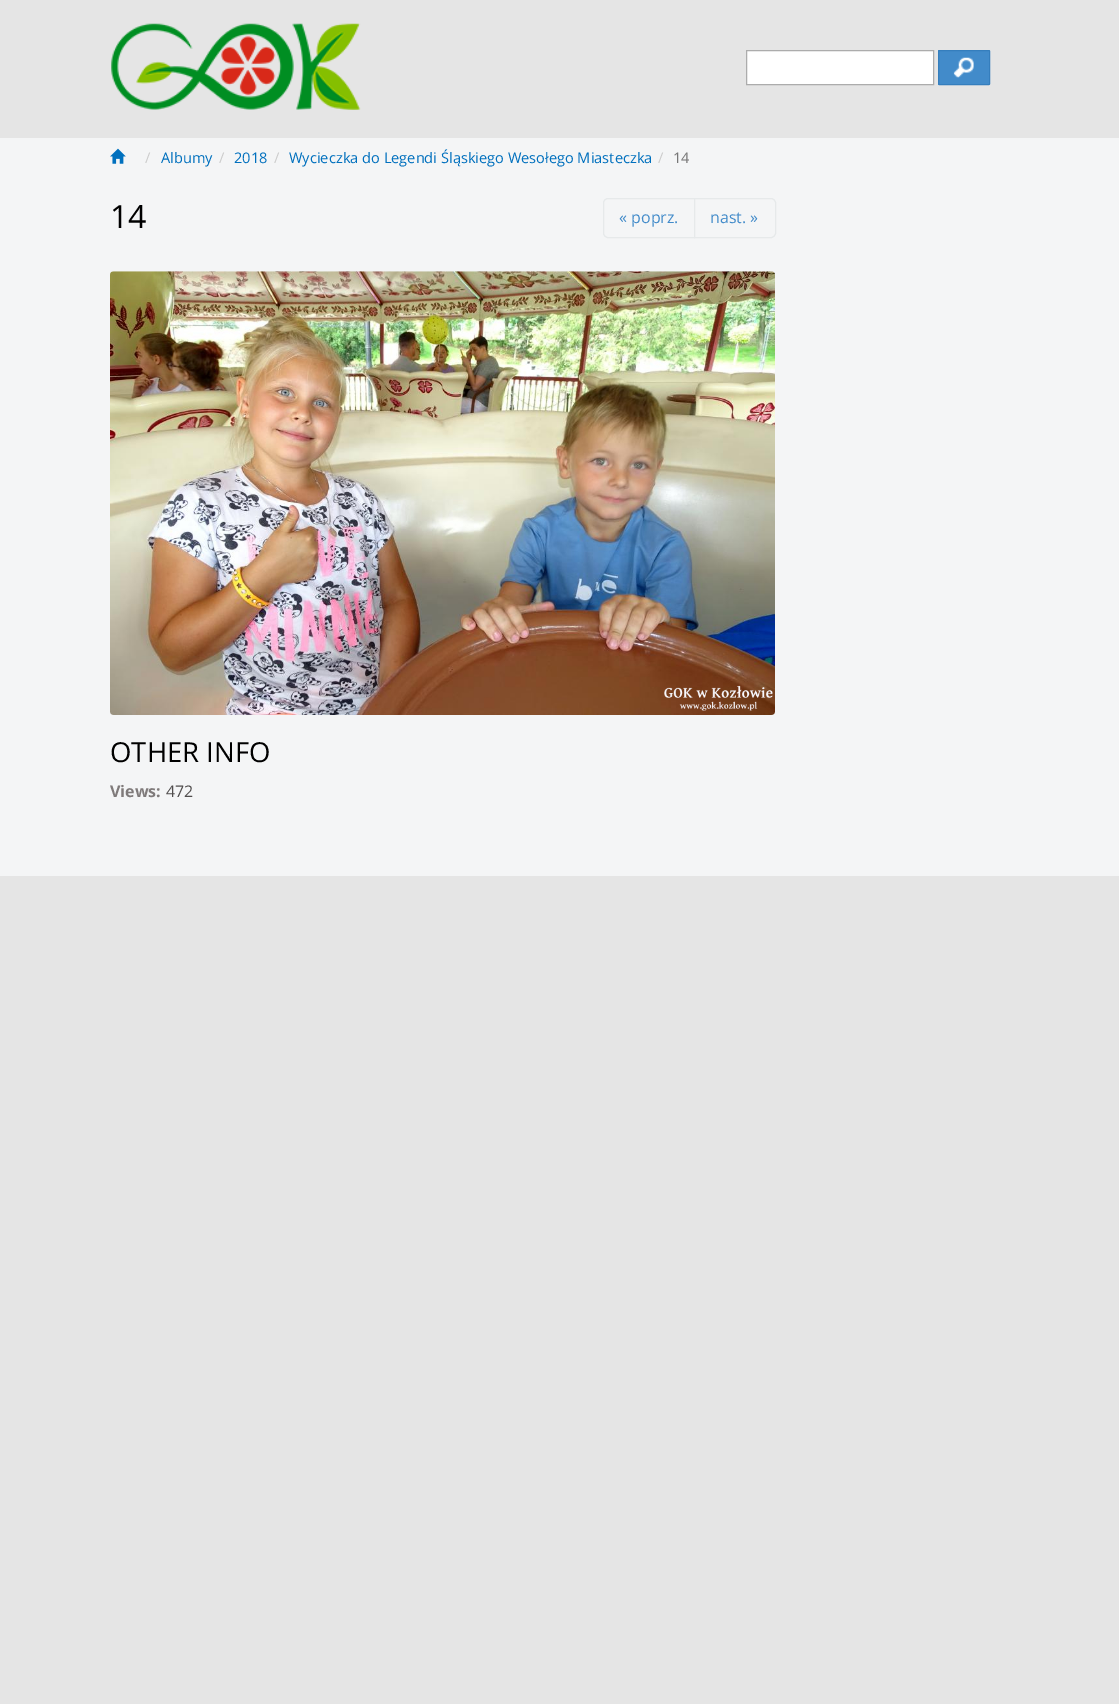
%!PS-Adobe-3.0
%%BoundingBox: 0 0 1119 1704
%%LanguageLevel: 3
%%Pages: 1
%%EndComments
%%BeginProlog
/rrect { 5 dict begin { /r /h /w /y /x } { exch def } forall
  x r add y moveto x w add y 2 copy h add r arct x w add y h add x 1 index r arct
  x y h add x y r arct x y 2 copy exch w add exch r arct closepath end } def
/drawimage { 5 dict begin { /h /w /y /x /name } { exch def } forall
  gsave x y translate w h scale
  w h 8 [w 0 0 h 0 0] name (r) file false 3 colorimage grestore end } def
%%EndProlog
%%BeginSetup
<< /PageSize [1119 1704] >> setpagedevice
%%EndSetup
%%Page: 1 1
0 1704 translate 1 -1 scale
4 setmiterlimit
0.898 setgray
0 0 1119 1704 rectfill
(images/1.raw) 111 23 250 87 drawimage
1 setgray
newpath 746.5 50.5 moveto 933.5 50.5 lineto 933.5 84.5 lineto 746.5 84.5 lineto closepath gsave fill grestore
0.675 setgray
stroke
0.259 0.545 0.792 setrgbcolor
938.5 50.5 51 34 0.5 rrect gsave fill grestore
0.208 0.494 0.741 setrgbcolor
stroke
(images/2.raw) 953 57 21 21 drawimage
0.957 0.961 0.965 setrgbcolor
0 138 1119 738 rectfill
(images/3.raw) 110 148 16 16 drawimage
0.902 0.914 0.918 setrgbcolor
newpath 608 198.5 moveto 694.5 198.5 lineto 694.5 237.5 lineto 608 237.5 lineto 605.5 237.5 603.5 235.5 603.5 233 curveto 603.5 203 lineto 603.5 200.5 605.5 198.5 608 198.5 curveto closepath stroke
0.957 0.961 0.965 setrgbcolor
newpath 694.5 198.5 moveto 771 198.5 lineto 773.5 198.5 775.5 200.5 775.5 203 curveto 775.5 233 lineto 775.5 235.5 773.5 237.5 771 237.5 curveto 694.5 237.5 lineto closepath gsave fill grestore
0.902 0.914 0.918 setrgbcolor
stroke
(images/4.raw) 110 271 665 444 drawimage
/OpenSans-Regular [14.6 0 0 -14.6 0 0] selectfont
0.8 setgray
145 163 moveto (/) show
0 0.439 0.745 setrgbcolor
161 163 moveto (Albumy) show
0.8 setgray
219 163 moveto (/) show
0 0.439 0.745 setrgbcolor
234 163 moveto (2018) show
0.8 setgray
274 163 moveto (/) show
0 0.439 0.745 setrgbcolor
289 163 moveto (Wycieczka do Legendi Śląskiego Wesołego Miasteczka) show
0.8 setgray
658 163 moveto (/) show
0.467 setgray
673 163 moveto (14) show
/OpenSans-Regular [32 0 0 -32 0 0] selectfont
0 setgray
110 228 moveto (14) show
/OpenSans-Regular [16 0 0 -16 0 0] selectfont
0.259 0.545 0.792 setrgbcolor
619 223 moveto (« poprz.) show
710 223 moveto (nast. ») show
/OpenSans-Regular [27.5 0 0 -27.5 0 0] selectfont
0 setgray
110 762 moveto (OTHER INFO) show
/OpenSans-Bold [16 0 0 -16 0 0] selectfont
0.498 0.478 0.478 setrgbcolor
110 797 moveto (Views:) show
/OpenSans-Regular [16 0 0 -16 0 0] selectfont
0.314 0.302 0.302 setrgbcolor
166 797 moveto (472) show
showpage
%%EOF
